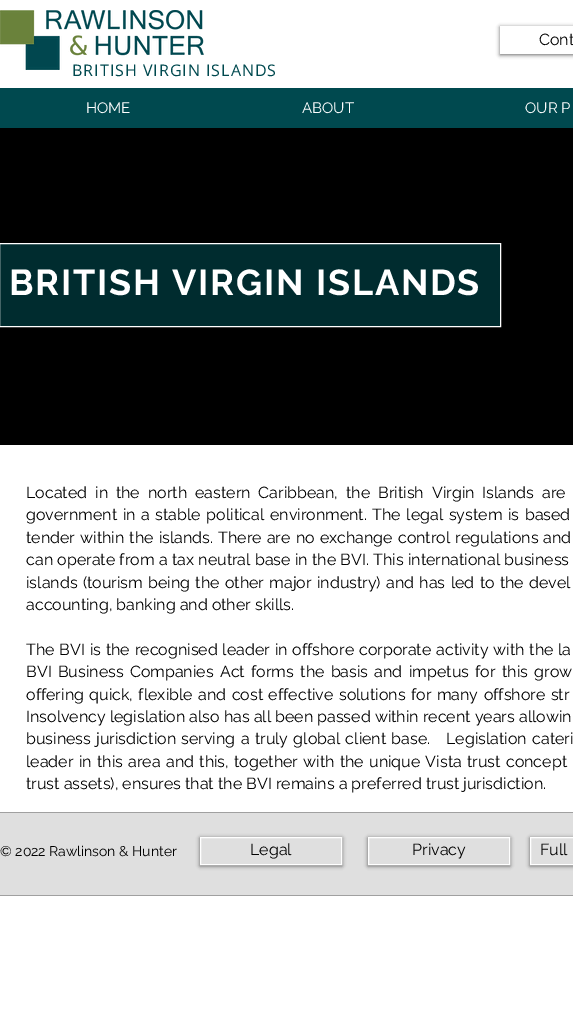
%!PS-Adobe-3.0
%%BoundingBox: 0 0 573 1033
%%LanguageLevel: 3
%%Pages: 1
%%EndComments
%%BeginProlog
/setalpha { dup .setfillconstantalpha .setstrokeconstantalpha } def
/rrect { 5 dict begin { /r /h /w /y /x } { exch def } forall
  x r add y moveto x w add y 2 copy h add r arct x w add y h add x 1 index r arct
  x y h add x y r arct x y 2 copy exch w add exch r arct closepath end } def
/softshadow { 12 dict begin { /a /b /q /h /w /y /x } { exch def } forall gsave /was 0 def
  9 -2 -9 { dup b mul 4 div /e exch def 1 sub .425 mul 2.718 exch exp 1 add a .99 .min exch div /now exch def
    1 1 now sub 1 was sub div sub setalpha /was now def
    w h .min e 2 mul add 0 gt { x e sub y e sub w e 2 mul add h e 2 mul add
      q e add b .6 mul add w h .min 2 div e add .min 0 .max rrect fill } if } for grestore end } def
/drawimage { 5 dict begin { /h /w /y /x /name } { exch def } forall
  gsave x y translate w h scale
  w h 8 [w 0 0 h 0 0] name (r) file false 3 colorimage grestore end } def
%%EndProlog
%%BeginSetup
<< /PageSize [573 1033] /PageUsesTransparency true >> setpagedevice
%%EndSetup
%%Page: 1 1
0 .pushpdf14devicefilter
0 1033 translate 1 -1 scale
4 setmiterlimit
1 setgray
0 0 573 1033 rectfill
(images/1.raw) 0 10 204 60 drawimage
gsave
newpath 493 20 moveto 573 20 lineto 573 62 lineto 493 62 lineto closepath 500 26 moveto 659 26 lineto 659 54 lineto 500 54 lineto closepath eoclip newpath
0 setgray
500 27 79 28 0 2 0.6 softshadow
grestore
0 0.286 0.31 setrgbcolor
0 88 573 40 rectfill
0 setgray
0 128 573 317 rectfill
0 0.173 0.184 setrgbcolor
newpath -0.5 243.5 moveto 500.5 243.5 lineto 500.5 326.5 lineto -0.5 326.5 lineto closepath gsave fill grestore
1 setgray
stroke
0.627 setgray
0 812 573 1 rectfill
0 895 573 1 rectfill
0.875 setgray
0 813 573 82 rectfill
gsave
newpath 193 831 moveto 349 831 lineto 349 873 lineto 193 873 lineto closepath 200 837 moveto 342 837 lineto 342 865 lineto 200 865 lineto closepath eoclip newpath
0 setgray
200 838 142 28 0 2 0.6 softshadow
grestore
1 setgray
200.5 837.5 141 27 rectstroke
gsave
newpath 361 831 moveto 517 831 lineto 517 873 lineto 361 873 lineto closepath 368 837 moveto 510 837 lineto 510 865 lineto 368 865 lineto closepath eoclip newpath
0 setgray
368 838 142 28 0 2 0.6 softshadow
grestore
368.5 837.5 141 27 rectstroke
gsave
newpath 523 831 moveto 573 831 lineto 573 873 lineto 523 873 lineto closepath 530 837 moveto 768 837 lineto 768 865 lineto 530 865 lineto closepath eoclip newpath
0 setgray
530 838 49 28 0 2 0.6 softshadow
grestore
530.5 837.5 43 27 rectstroke
/Raleway-Regular [16 0 0 -16 0 0] selectfont
0 setgray
539 45 moveto (Cont) show
/OpenSans-Regular [16 0 0 -16 0 0] selectfont
0 0.286 0.31 setrgbcolor
72 76 moveto 1 0 (BRITISH VIRGIN ISLANDS) ashow
/Raleway-Regular [15 0 0 -15 0 0] selectfont
1 setgray
86 113 moveto (HOME) show
302 113 moveto (ABOUT) show
525 113 moveto (OUR P) show
/Raleway-Bold [36 0 0 -36 0 0] selectfont
9 295 moveto 1.8 0 (BRITISH VIRGIN ISLANDS) ashow
/Raleway-Regular [16 0 0 -16 0 0] selectfont
0 setgray
26 498 moveto 3.9 0 32 (Located in the north eastern Caribbean, the British Virgin Islands are) widthshow
26 520 moveto 1.5 0 32 (government in a stable political environment. The legal system is based) widthshow
26 543 moveto 1.1 0 32 (tender within the islands. There are no exchange control regulations and) widthshow
26 565 moveto 0.25 0 32 (can operate from a tax neutral base in the BVI. This international business) widthshow
26 588 moveto 1.25 0 32 (islands \(tourism being the other major industry\) and has led to the devel) widthshow
26 610 moveto (accounting, banking and other skills.) show
26 655 moveto 0.75 0 32 (The BVI is the recognised leader in offshore corporate activity with the la) widthshow
26 677 moveto 2.25 0 32 (BVI Business Companies Act forms the basis and impetus for this grow) widthshow
26 700 moveto 1.4 0 32 (offering quick, flexible and cost effective solutions for many offshore str) widthshow
26 722 moveto (Insolvency legislation also has all been passed within recent years allowin) show
26 744 moveto 1.25 0 32 (business jurisdiction serving a truly global client base.   Legislation cateri) widthshow
26 767 moveto 1.25 0 32 (leader in this area and this, together with the unique Vista trust concept) widthshow
26 789 moveto (trust assets\), ensures that the BVI remains a preferred trust jurisdiction.) show
/Raleway-Regular [14 0 0 -14 0 0] selectfont
0 856 moveto (© 2022 Rawlinson & Hunter) show
/Raleway-Regular [16 0 0 -16 0 0] selectfont
250 855 moveto (Legal) show
412 855 moveto (Privacy) show
540 855 moveto (Full) show
.poppdf14devicefilter showpage
%%EOF
